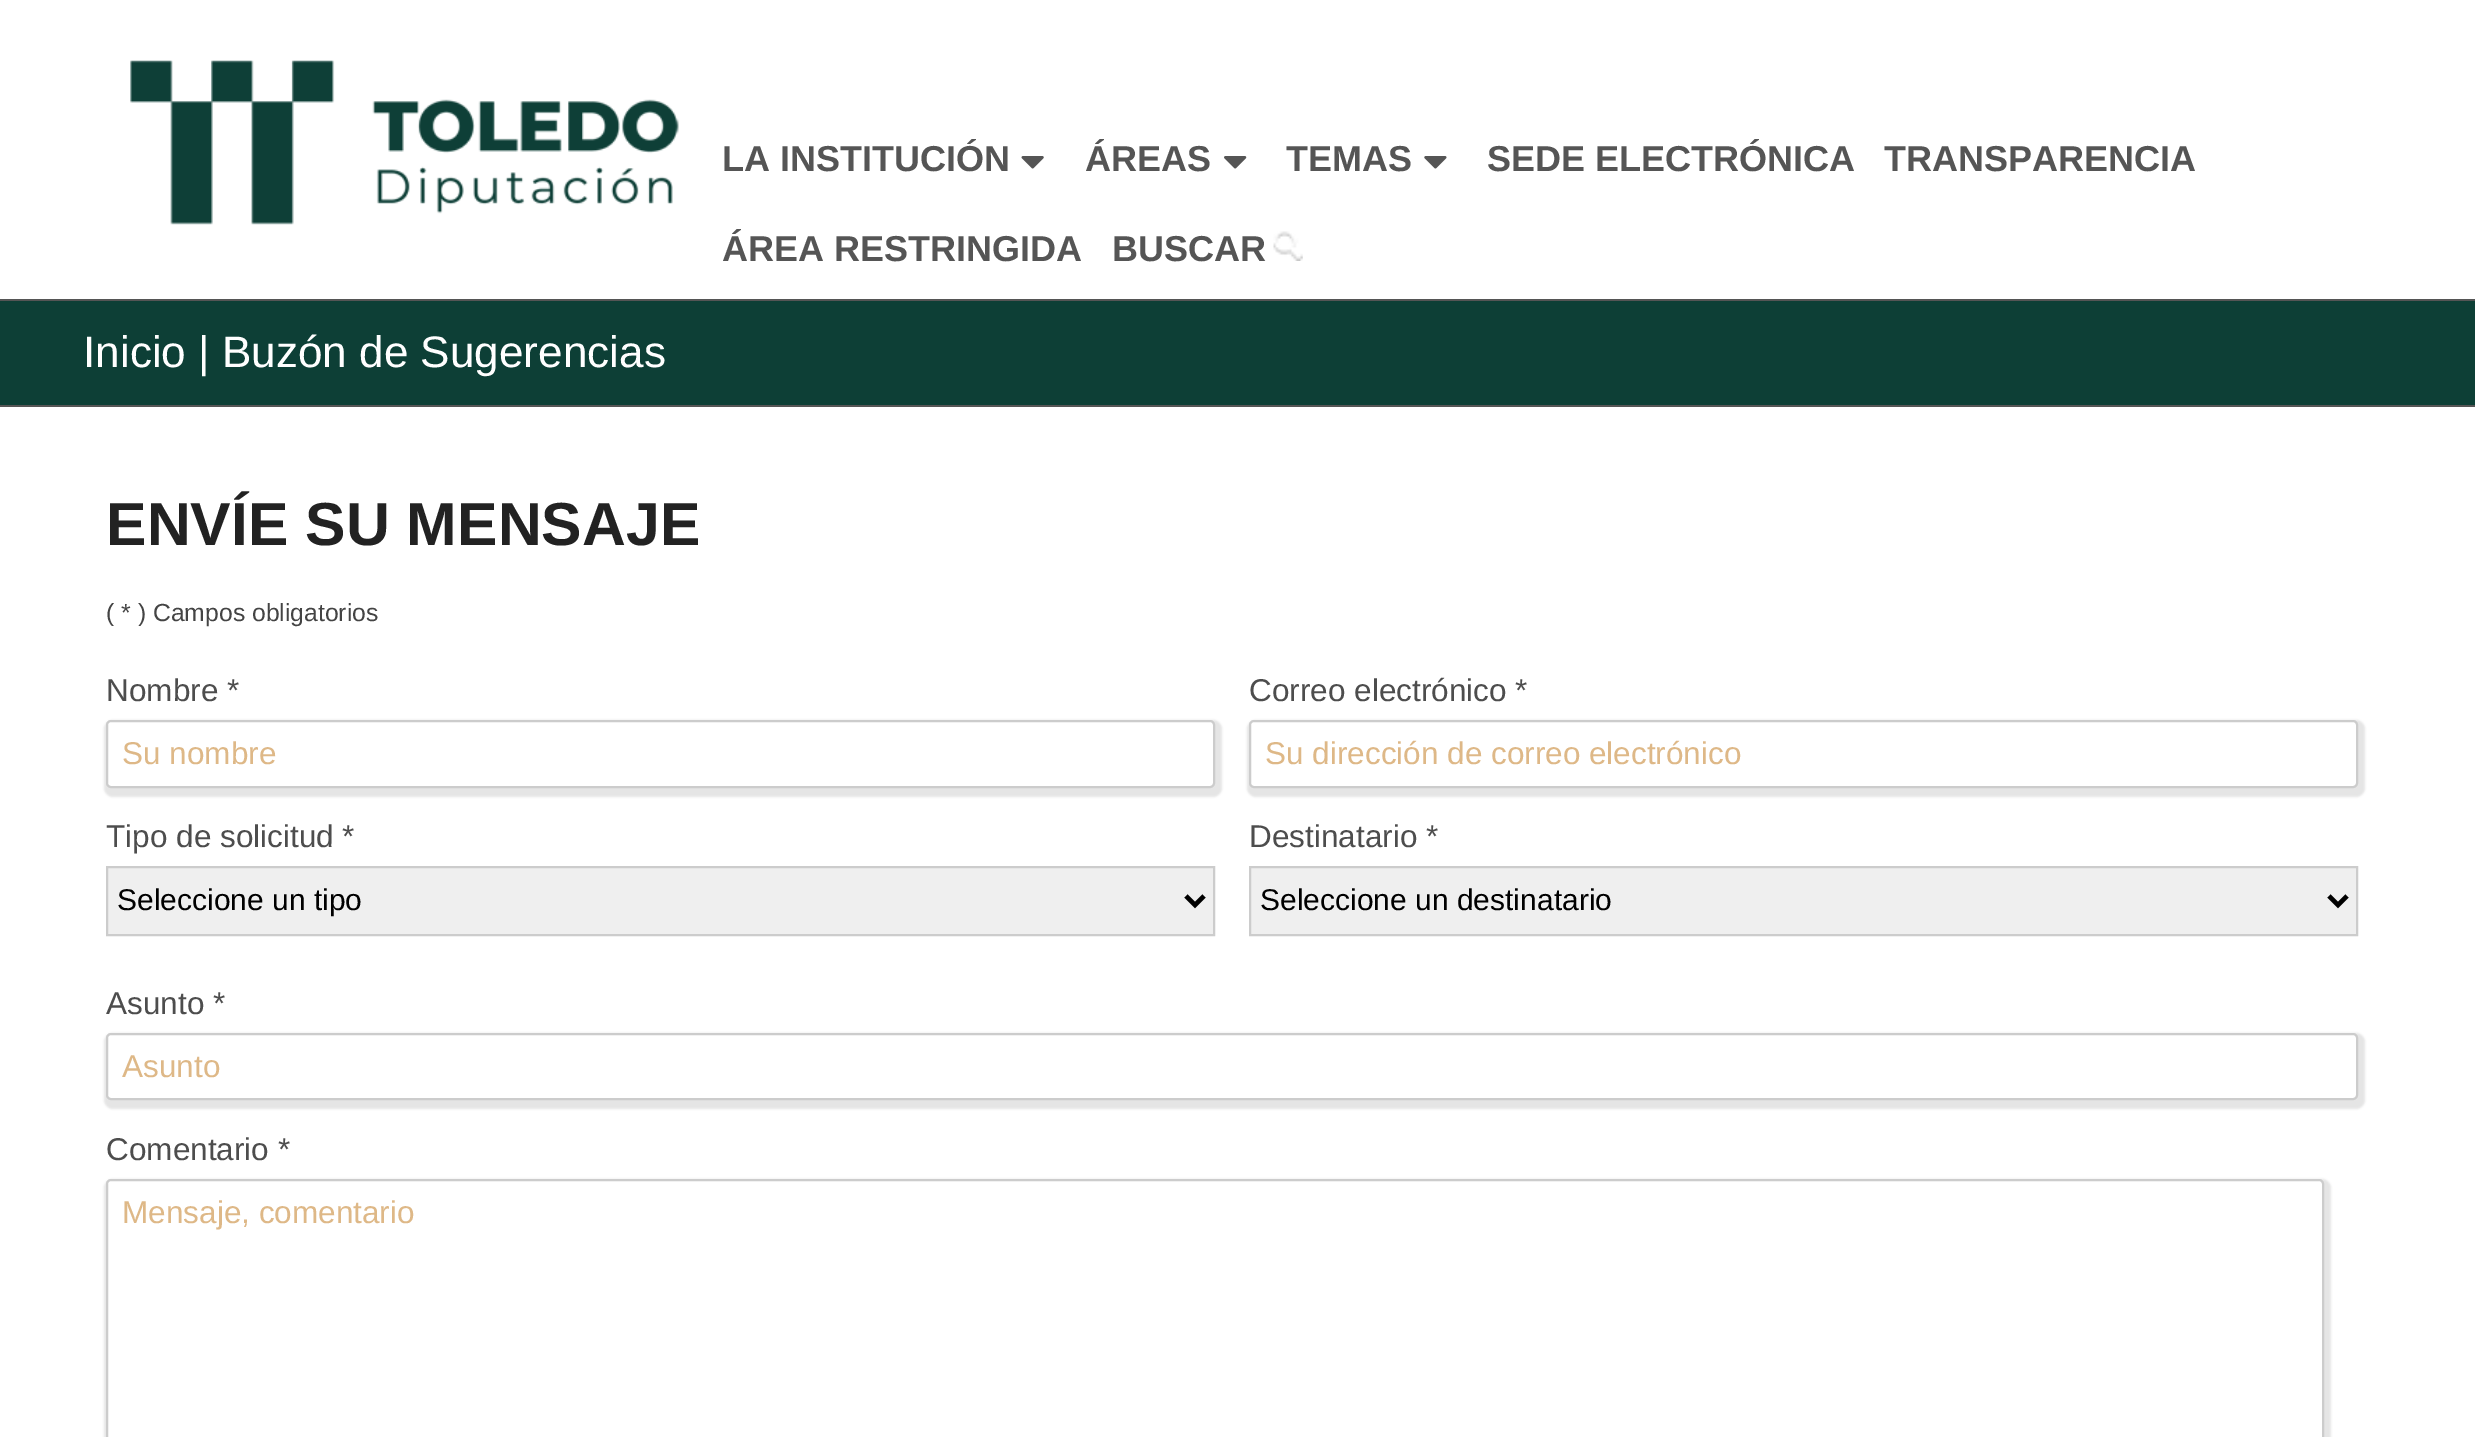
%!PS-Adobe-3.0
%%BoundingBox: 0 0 2475 1437
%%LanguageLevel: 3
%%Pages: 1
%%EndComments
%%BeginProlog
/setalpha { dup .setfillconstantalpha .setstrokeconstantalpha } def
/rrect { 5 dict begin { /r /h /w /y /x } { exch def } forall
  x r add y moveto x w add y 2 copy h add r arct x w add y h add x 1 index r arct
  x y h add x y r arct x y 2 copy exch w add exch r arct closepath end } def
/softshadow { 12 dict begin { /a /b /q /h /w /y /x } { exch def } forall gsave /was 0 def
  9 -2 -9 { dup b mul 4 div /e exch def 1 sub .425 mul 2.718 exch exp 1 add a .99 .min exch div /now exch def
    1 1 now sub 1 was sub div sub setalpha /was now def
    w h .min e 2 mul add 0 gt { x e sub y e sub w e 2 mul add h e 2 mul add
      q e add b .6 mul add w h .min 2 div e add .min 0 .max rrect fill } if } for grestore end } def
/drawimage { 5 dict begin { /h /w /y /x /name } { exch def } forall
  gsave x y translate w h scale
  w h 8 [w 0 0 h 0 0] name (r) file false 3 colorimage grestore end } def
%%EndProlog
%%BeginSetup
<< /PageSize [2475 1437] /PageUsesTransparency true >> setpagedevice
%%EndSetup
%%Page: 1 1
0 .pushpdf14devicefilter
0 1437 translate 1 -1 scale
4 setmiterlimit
1 setgray
0 0 2475 1437 rectfill
(images/1.raw) 130 60 549 165 drawimage
(images/2.raw) 1021 156 23 13 drawimage
(images/3.raw) 1224 156 23 13 drawimage
(images/4.raw) 1424 156 23 13 drawimage
(images/5.raw) 1273 231 30 30 drawimage
0.051 0.247 0.212 setrgbcolor
0 301 2475 104 rectfill
0.333 setgray
0 299 2475 2 rectfill
0 405 2475 2 rectfill
0 setgray
104 720 1118 77 9 1 0.1 softshadow
1 setgray
107 721 1107 66 4 rrect gsave fill grestore
0.8 setgray
2 setlinewidth
stroke
0 setgray
1247 720 1118 77 9 1 0.1 softshadow
1 setgray
1250 721 1107 66 4 rrect gsave fill grestore
0.8 setgray
stroke
0.937 setgray
newpath 107 867 moveto 1214 867 lineto 1214 935 lineto 107 935 lineto closepath gsave fill grestore
0.8 setgray
stroke
0 setgray
4.5 setlinewidth
newpath 1186 896 moveto 1195 905 lineto 1204 896 lineto stroke
0.937 setgray
newpath 1250 867 moveto 2357 867 lineto 2357 935 lineto 1250 935 lineto closepath gsave fill grestore
0.8 setgray
2 setlinewidth
stroke
0 setgray
4.5 setlinewidth
newpath 2329 896 moveto 2338 905 lineto 2347 896 lineto stroke
104 1033 2261 76 9 1 0.1 softshadow
1 setgray
107 1034 2250 65 4 rrect gsave fill grestore
0.8 setgray
2 setlinewidth
stroke
0 setgray
104 1179 2227 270 9 1 0.1 softshadow
1 setgray
107 1180 2216 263 4 rrect gsave fill grestore
0.8 setgray
stroke
/LiberationSans-Bold [36 0 0 -36 0 0] selectfont
0.333 setgray
722 171 moveto (LA INSTITUCIÓN) show
1085 171 moveto (ÁREAS) show
1286 171 moveto (TEMAS) show
1487 171 moveto (SEDE ELECTRÓNICA) show
1884 171 moveto (TRANSPARENCIA) show
722 261 moveto (ÁREA RESTRINGIDA) show
1112 261 moveto (BUSCAR) show
/LiberationSans-Regular [44.1 0 0 -44.1 0 0] selectfont
1 setgray
83 367 moveto (Inicio | Buzón de Sugerencias) show
/LiberationSans-Bold [60.75 0 0 -60.75 0 0] selectfont
0.133 setgray
106 545 moveto (ENVÍE SU MENSAJE) show
/LiberationSans-Regular [24.75 0 0 -24.75 0 0] selectfont
0.267 setgray
106 621 moveto (\( * \) Campos obligatorios) show
/LiberationSans-Regular [31.5 0 0 -31.5 0 0] selectfont
0.302 setgray
106 701 moveto (Nombre *) show
0.871 0.722 0.529 setrgbcolor
122 764 moveto (Su nombre) show
0.302 setgray
1249 701 moveto (Correo electrónico *) show
0.871 0.722 0.529 setrgbcolor
1265 764 moveto (Su dirección de correo electrónico) show
0.302 setgray
106 847 moveto (Tipo de solicitud *) show
/LiberationSans-Regular [30 0 0 -30 0 0] selectfont
0 setgray
117 910 moveto (Seleccione un tipo) show
/LiberationSans-Regular [31.5 0 0 -31.5 0 0] selectfont
0.302 setgray
1249 847 moveto (Destinatario *) show
/LiberationSans-Regular [30 0 0 -30 0 0] selectfont
0 setgray
1260 910 moveto (Seleccione un destinatario) show
/LiberationSans-Regular [31.5 0 0 -31.5 0 0] selectfont
0.302 setgray
106 1014 moveto (Asunto *) show
0.871 0.722 0.529 setrgbcolor
122 1077 moveto (Asunto) show
0.302 setgray
106 1160 moveto (Comentario *) show
0.871 0.722 0.529 setrgbcolor
122 1223 moveto (Mensaje, comentario) show
.poppdf14devicefilter showpage
%%EOF
